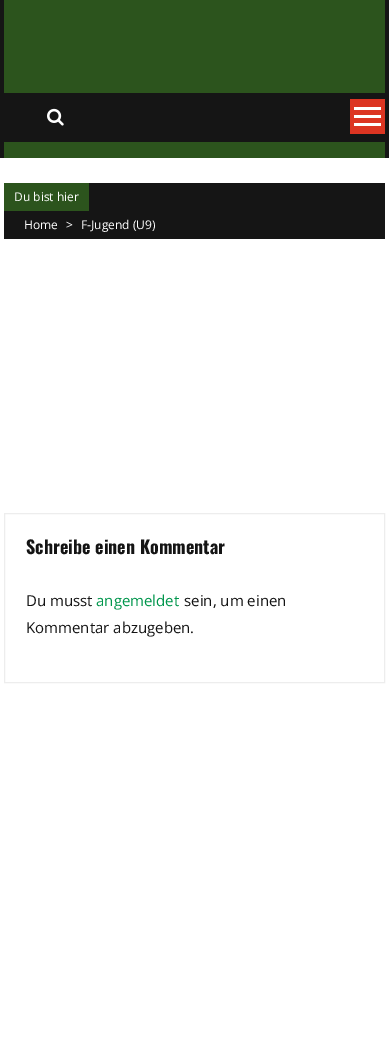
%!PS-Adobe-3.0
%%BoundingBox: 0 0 389 1039
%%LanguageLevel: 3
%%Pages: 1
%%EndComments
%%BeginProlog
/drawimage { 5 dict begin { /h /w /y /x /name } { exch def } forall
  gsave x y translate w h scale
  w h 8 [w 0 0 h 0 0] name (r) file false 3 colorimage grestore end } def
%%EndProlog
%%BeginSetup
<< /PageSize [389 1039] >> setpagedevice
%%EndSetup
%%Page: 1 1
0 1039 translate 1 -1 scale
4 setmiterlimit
1 setgray
0 0 389 1039 rectfill
0.082 setgray
0 0 389 158 rectfill
0.173 0.329 0.114 setrgbcolor
4 0 381 158 rectfill
0.082 setgray
4 93 381 49 rectfill
0.863 0.208 0.133 setrgbcolor
350 99 35 35 rectfill
1 setgray
354 107 27 3 rectfill
354 115 27 3 rectfill
354 123 27 3 rectfill
(images/1.raw) 47 108 17 18 drawimage
0.082 setgray
4 183 381 56 rectfill
0.173 0.329 0.114 setrgbcolor
4 183 85 28 rectfill
0.929 setgray
4.5 513.5 380 169 rectstroke
/OpenSans-Regular [12 0 0 -12 0 0] selectfont
1 setgray
14 201 moveto (Du bist hier) show
24 229 moveto (Home) show
66 229 moveto (>) show
81 229 moveto (F-Jugend \(U9\)) show
/Oswald-Bold [18 0 0 -18 0 0] selectfont
0.078 setgray
26 554 moveto (Schreibe einen Kommentar) show
/OpenSans-Regular [15 0 0 -15 0 0] selectfont
26 606 moveto (Du musst) show
0 0.588 0.298 setrgbcolor
96 606 moveto (angemeldet) show
0.078 setgray
184 606 moveto (sein, um einen) show
26 633 moveto (Kommentar abzugeben.) show
showpage
%%EOF
